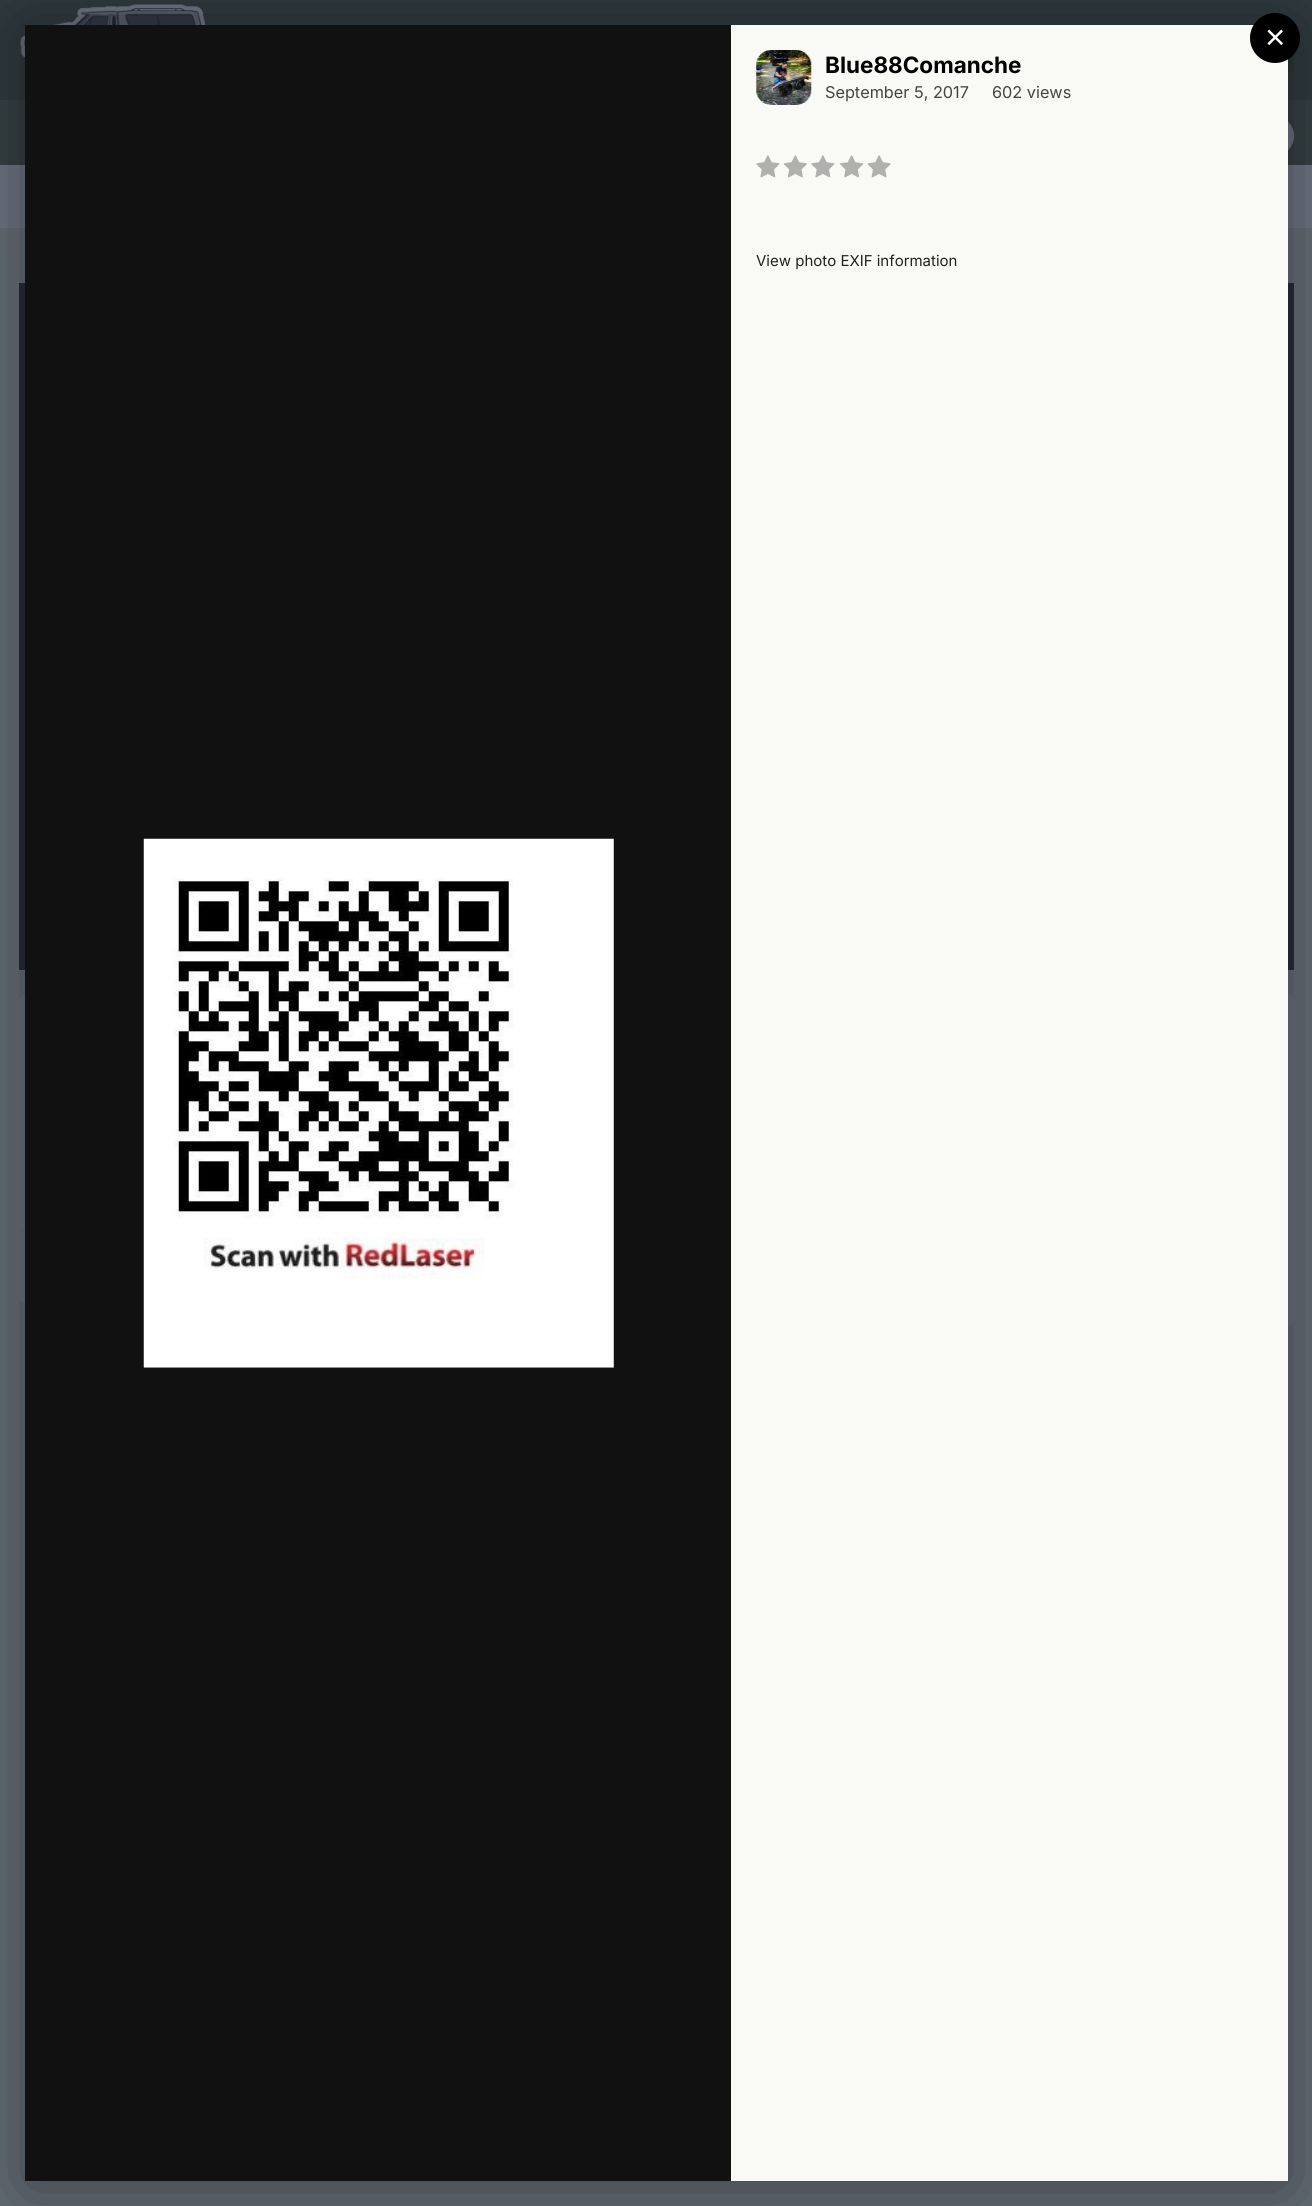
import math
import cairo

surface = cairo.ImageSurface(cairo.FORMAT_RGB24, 1312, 2206)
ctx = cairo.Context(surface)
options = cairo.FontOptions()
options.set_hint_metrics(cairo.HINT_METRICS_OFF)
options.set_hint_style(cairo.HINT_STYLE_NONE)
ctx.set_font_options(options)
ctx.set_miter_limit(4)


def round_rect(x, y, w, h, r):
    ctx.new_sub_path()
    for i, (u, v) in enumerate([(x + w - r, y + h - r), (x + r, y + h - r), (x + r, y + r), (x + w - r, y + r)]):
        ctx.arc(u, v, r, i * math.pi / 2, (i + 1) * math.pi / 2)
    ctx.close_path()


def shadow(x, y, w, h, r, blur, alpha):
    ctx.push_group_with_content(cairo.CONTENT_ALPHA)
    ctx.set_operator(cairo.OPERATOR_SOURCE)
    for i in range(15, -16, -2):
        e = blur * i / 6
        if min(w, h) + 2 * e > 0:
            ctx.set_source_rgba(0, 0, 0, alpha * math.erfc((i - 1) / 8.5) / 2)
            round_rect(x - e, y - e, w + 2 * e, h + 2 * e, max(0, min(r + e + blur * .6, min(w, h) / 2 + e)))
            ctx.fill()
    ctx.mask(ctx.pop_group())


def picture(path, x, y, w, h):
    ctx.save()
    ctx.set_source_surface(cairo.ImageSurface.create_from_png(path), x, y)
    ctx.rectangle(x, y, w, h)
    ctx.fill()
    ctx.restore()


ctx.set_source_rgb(0.388, 0.424, 0.455)
ctx.paint()
ctx.set_source_rgb(0.184, 0.224, 0.243)
ctx.rectangle(0, 0, 1312, 100)
ctx.fill()
picture("img1.png", 20, 4, 186, 54)
ctx.set_source_rgb(0.173, 0.216, 0.208)
round_rect(1180, 29, 114, 44, 5)
ctx.fill()
ctx.set_source_rgb(0.208, 0.247, 0.259)
ctx.rectangle(0, 100, 1312, 65)
ctx.fill()
ctx.set_source_rgb(0.424, 0.451, 0.498)
round_rect(856, 116, 438, 40, 20)
ctx.fill()
ctx.rectangle(0, 165, 1312, 63)
ctx.fill()
ctx.set_source_rgb(0.145, 0.173, 0.22)
ctx.rectangle(19, 283, 1275, 687)
ctx.fill()
ctx.set_source_rgb(0.416, 0.447, 0.486)
round_rect(19, 995, 910, 308, 5)
ctx.fill()
ctx.set_source_rgb(0.392, 0.42, 0.463)
ctx.rectangle(19, 1230, 6, 1)
ctx.fill()
ctx.set_source_rgb(0.416, 0.447, 0.486)
round_rect(959, 995, 335, 330, 5)
ctx.fill()
ctx.set_source_rgb(0, 0, 0)
shadow(25, 31, 1263, 2157, 0, 34.5, 0.4)
ctx.set_source_rgb(0.976, 0.98, 0.961)
ctx.rectangle(731, 25, 557, 2156)
ctx.fill()
ctx.set_source_rgb(0, 0, 0)
ctx.arc(1275, 38, 25, 0, 2 * math.pi)
ctx.fill()
ctx.select_font_face("Liberation Sans")
ctx.set_font_size(35)
ctx.set_source_rgb(1, 1, 1)
ctx.move_to(1265, 49)
ctx.show_text("×")
ctx.set_source_rgb(0.067, 0.067, 0.067)
ctx.rectangle(25, 25, 706, 2156)
ctx.fill()
picture("img2.png", 756, 50, 56, 55)
ctx.select_font_face("Inter", cairo.FONT_SLANT_NORMAL, cairo.FONT_WEIGHT_BOLD)
ctx.set_font_size(22.5)
ctx.set_source_rgb(0, 0, 0)
ctx.move_to(825, 73)
ctx.show_text("Blue88Comanche")
ctx.select_font_face("Inter")
ctx.set_font_size(16.25)
ctx.set_source_rgb(0.267, 0.267, 0.267)
ctx.move_to(825, 98)
ctx.show_text("September 5, 2017")
ctx.move_to(992, 98)
ctx.show_text("602 views")
picture("img3.png", 756, 155, 24, 23)
picture("img4.png", 783, 155, 24, 23)
picture("img3.png", 811, 155, 24, 23)
picture("img5.png", 840, 155, 24, 23)
picture("img6.png", 867, 155, 24, 23)
ctx.set_font_size(15)
ctx.set_source_rgb(0.125, 0.129, 0.129)
ctx.move_to(756, 266)
ctx.show_text("View photo EXIF information")
ctx.set_source_rgb(0.133, 0.133, 0.133)
ctx.rectangle(144, 839, 470, 529)
ctx.fill()
picture("img7.png", 143, 838, 471, 530)
surface.write_to_png("page.png")
